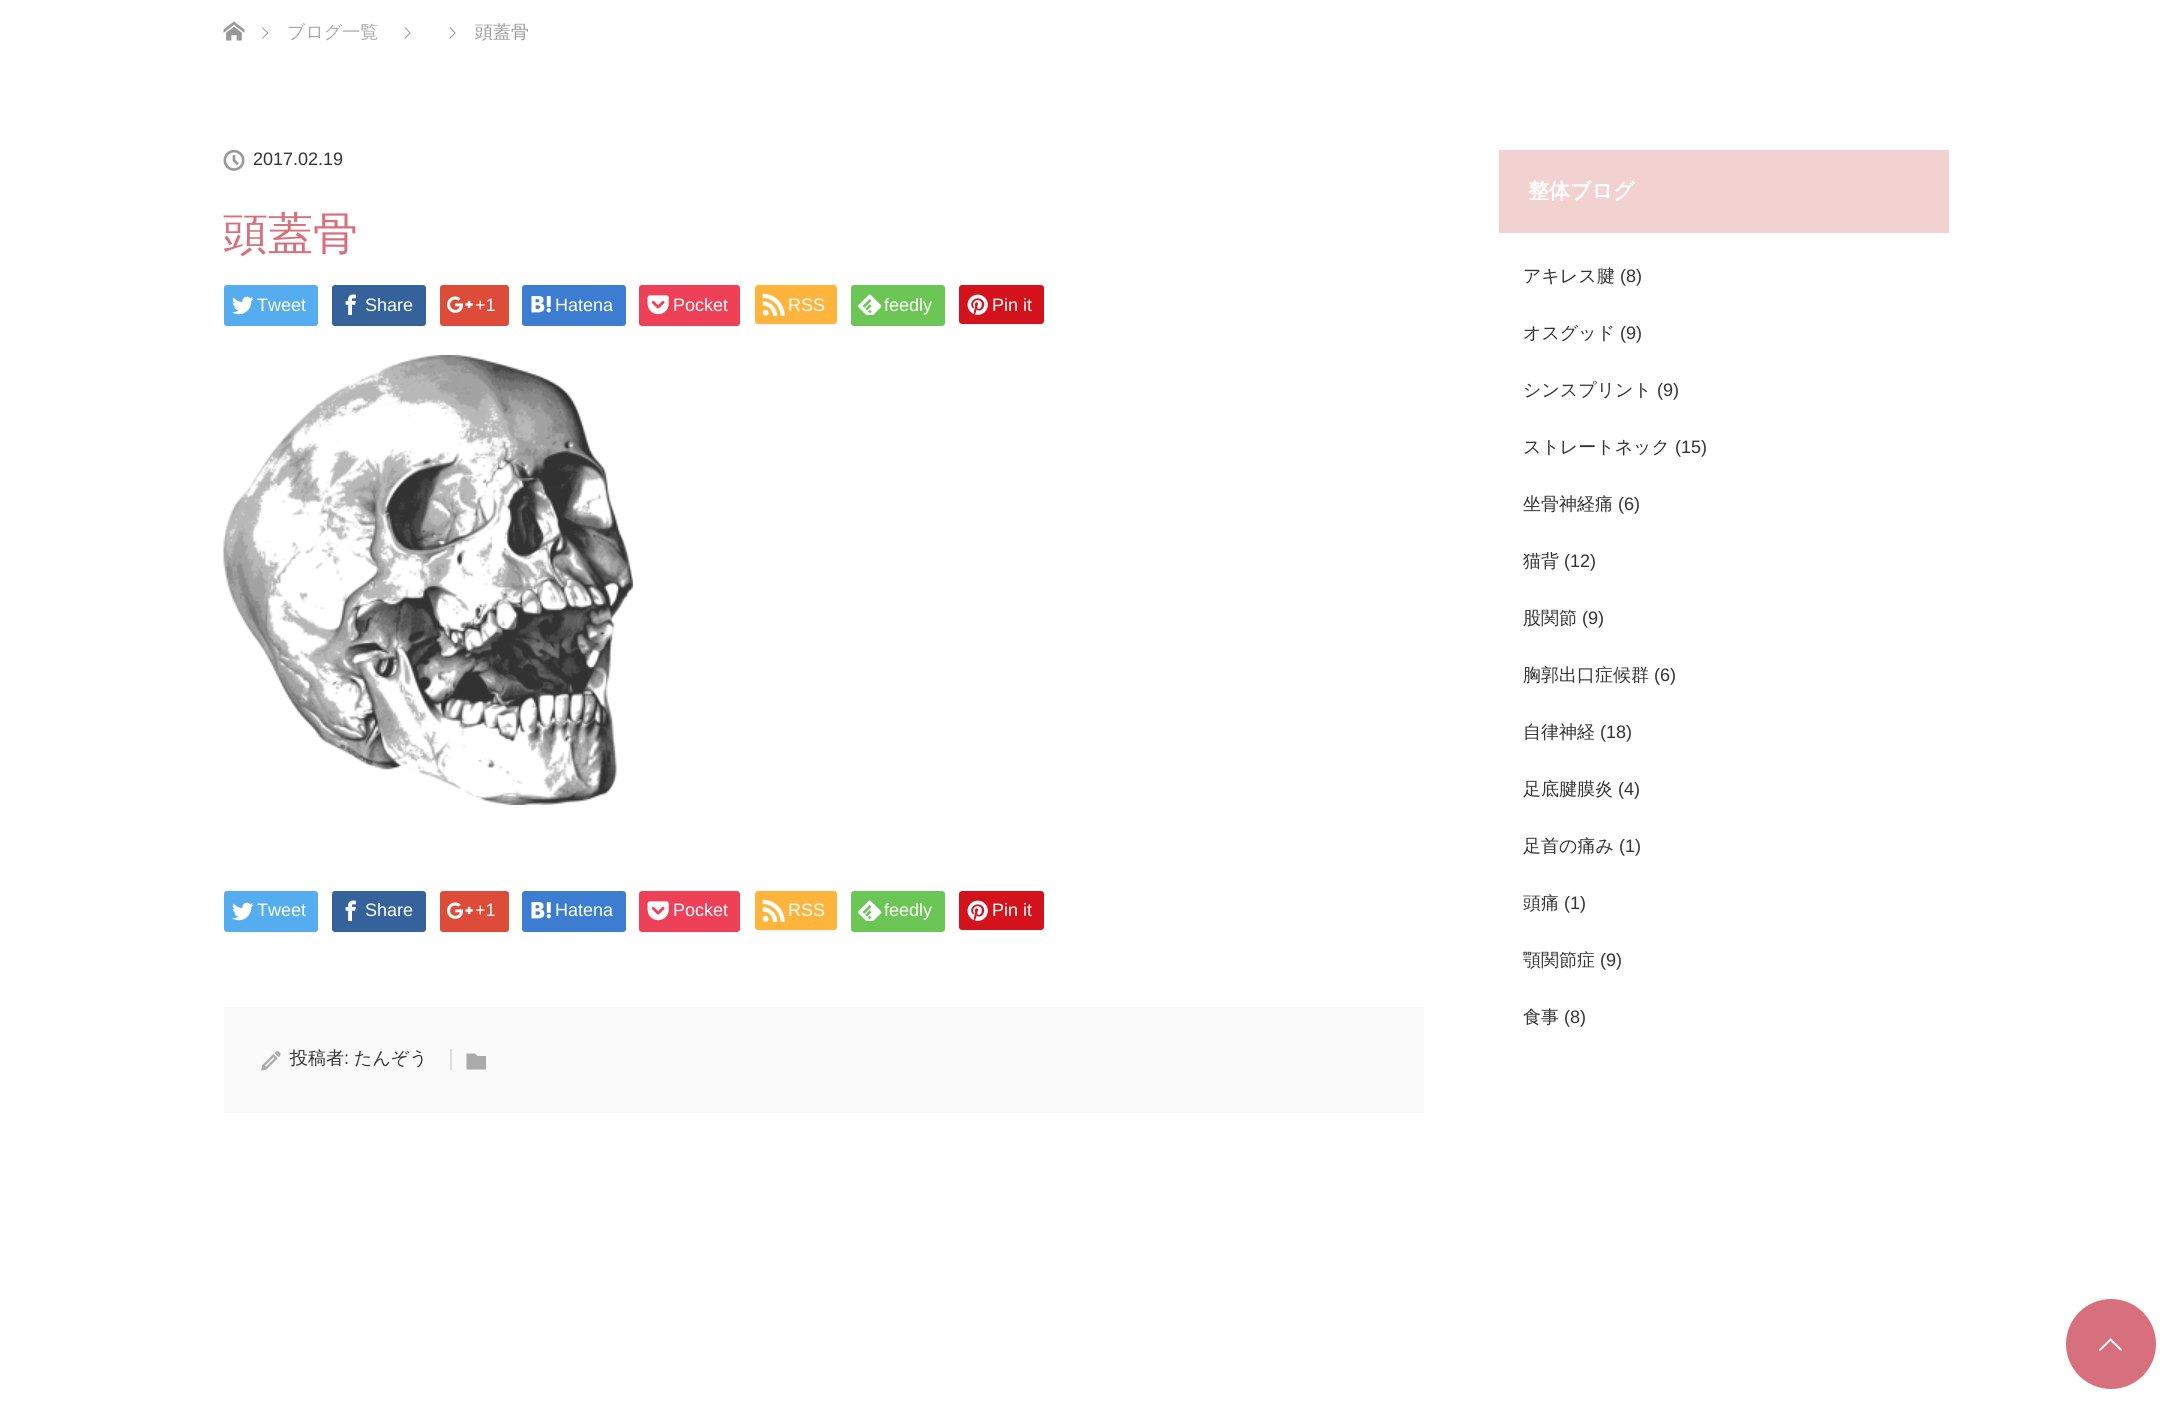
import math
import cairo

surface = cairo.ImageSurface(cairo.FORMAT_RGB24, 2170, 1403)
ctx = cairo.Context(surface)
options = cairo.FontOptions()
options.set_hint_metrics(cairo.HINT_METRICS_OFF)
options.set_hint_style(cairo.HINT_STYLE_NONE)
ctx.set_font_options(options)
ctx.set_miter_limit(4)


def round_rect(x, y, w, h, r):
    ctx.new_sub_path()
    for i, (u, v) in enumerate([(x + w - r, y + h - r), (x + r, y + h - r), (x + r, y + r), (x + w - r, y + r)]):
        ctx.arc(u, v, r, i * math.pi / 2, (i + 1) * math.pi / 2)
    ctx.close_path()


def picture(path, x, y, w, h):
    ctx.save()
    ctx.set_source_surface(cairo.ImageSurface.create_from_png(path), x, y)
    ctx.rectangle(x, y, w, h)
    ctx.fill()
    ctx.restore()


ctx.set_source_rgb(1, 1, 1)
ctx.paint()
picture("img1.png", 223, 21, 22, 20)
picture("img2.png", 262, 27, 7, 12)
ctx.select_font_face("WenQuanYi Zen Hei Medium")
ctx.set_font_size(18)
ctx.set_source_rgb(0.667, 0.667, 0.667)
ctx.move_to(287, 38)
ctx.show_text("ブログ一覧")
picture("img3.png", 404, 27, 7, 12)
picture("img3.png", 449, 27, 7, 12)
ctx.set_source_rgb(0.6, 0.6, 0.6)
ctx.move_to(475, 38)
ctx.show_text("頭蓋骨")
picture("img4.png", 223, 149, 22, 22)
ctx.select_font_face("Liberation Sans")
ctx.set_source_rgb(0.2, 0.2, 0.2)
ctx.move_to(253, 165)
ctx.show_text("2017.02.19")
ctx.select_font_face("WenQuanYi Zen Hei Medium")
ctx.set_font_size(45)
ctx.set_source_rgb(0.847, 0.435, 0.486)
ctx.move_to(223, 249)
ctx.show_text("頭蓋骨")
ctx.set_source_rgb(0.969, 0.969, 0.969)
ctx.new_path()
ctx.move_to(224, 324)
ctx.curve_to(224, 326, 225, 327, 227, 327)
ctx.line_to(315, 327)
ctx.curve_to(317, 327, 318, 326, 318, 324)
ctx.line_to(318, 322)
ctx.line_to(317, 324)
ctx.line_to(316, 325)
ctx.line_to(226, 325)
ctx.close_path()
ctx.fill()
ctx.set_source_rgb(0.333, 0.675, 0.933)
round_rect(224, 285, 94, 41, 3)
ctx.fill()
picture("img5.png", 232, 296, 22, 19)
ctx.select_font_face("Liberation Sans")
ctx.set_font_size(18)
ctx.set_source_rgb(1, 1, 1)
ctx.move_to(257, 311)
ctx.show_text("Tweet")
ctx.set_source_rgb(0.969, 0.969, 0.969)
ctx.new_path()
ctx.move_to(332, 324)
ctx.curve_to(332, 326, 333, 327, 335, 327)
ctx.line_to(423, 327)
ctx.curve_to(425, 327, 426, 326, 426, 324)
ctx.line_to(426, 322)
ctx.line_to(425, 324)
ctx.line_to(424, 325)
ctx.line_to(334, 325)
ctx.close_path()
ctx.fill()
ctx.set_source_rgb(0.208, 0.384, 0.604)
round_rect(332, 285, 94, 41, 3)
ctx.fill()
picture("img6.png", 345, 294, 11, 21)
ctx.set_source_rgb(1, 1, 1)
ctx.move_to(365, 311)
ctx.show_text("Share")
ctx.set_source_rgb(0.969, 0.969, 0.969)
ctx.new_path()
ctx.move_to(440, 324)
ctx.curve_to(440, 326, 441, 327, 443, 327)
ctx.line_to(506, 327)
ctx.curve_to(508, 327, 509, 326, 509, 324)
ctx.line_to(509, 290)
ctx.line_to(508, 288)
ctx.line_to(508, 322)
ctx.curve_to(508, 324, 507, 326, 506, 326)
ctx.line_to(442, 326)
ctx.curve_to(441, 326, 441, 325, 440, 324)
ctx.close_path()
ctx.fill()
ctx.set_source_rgb(0.867, 0.294, 0.224)
round_rect(440, 285, 69, 41, 3)
ctx.fill()
picture("img7.png", 447, 296, 26, 17)
ctx.set_source_rgb(1, 1, 1)
ctx.move_to(475, 311)
ctx.show_text("+1")
ctx.set_source_rgb(0.969, 0.969, 0.969)
ctx.new_path()
ctx.move_to(522, 322)
ctx.line_to(522, 324)
ctx.curve_to(522, 326, 523, 327, 525, 327)
ctx.line_to(623, 327)
ctx.curve_to(625, 327, 626, 326, 626, 324)
ctx.line_to(626, 290)
ctx.line_to(626, 288)
ctx.line_to(626, 322)
ctx.curve_to(626, 324, 624, 326, 622, 326)
ctx.line_to(525, 326)
ctx.curve_to(523, 326, 522, 324, 522, 322)
ctx.close_path()
ctx.fill()
ctx.set_source_rgb(0.235, 0.49, 0.82)
round_rect(522, 285, 104, 41, 3)
ctx.fill()
picture("img8.png", 531, 296, 20, 17)
ctx.set_source_rgb(1, 1, 1)
ctx.move_to(555, 311)
ctx.show_text("Hatena")
ctx.set_source_rgb(0.969, 0.969, 0.969)
ctx.new_path()
ctx.move_to(639, 322)
ctx.line_to(639, 324)
ctx.curve_to(639, 326, 640, 327, 642, 327)
ctx.line_to(737, 327)
ctx.curve_to(739, 327, 740, 326, 740, 324)
ctx.line_to(740, 290)
ctx.line_to(740, 288)
ctx.line_to(740, 322)
ctx.curve_to(740, 324, 738, 326, 736, 326)
ctx.line_to(642, 326)
ctx.curve_to(640, 326, 639, 324, 639, 322)
ctx.close_path()
ctx.fill()
ctx.set_source_rgb(0.933, 0.251, 0.337)
round_rect(639, 285, 101, 41, 3)
ctx.fill()
picture("img9.png", 647, 295, 22, 20)
ctx.set_source_rgb(1, 1, 1)
ctx.move_to(673, 311)
ctx.show_text("Pocket")
ctx.set_source_rgb(0.969, 0.969, 0.969)
ctx.new_path()
ctx.move_to(755, 323)
ctx.line_to(756, 325)
ctx.line_to(757, 326)
ctx.line_to(834, 326)
ctx.curve_to(837, 326, 837, 323, 837, 321)
ctx.line_to(836, 323)
ctx.line_to(835, 324)
ctx.line_to(770, 324)
ctx.curve_to(770, 324, 757, 326, 755, 323)
ctx.close_path()
ctx.fill()
ctx.set_source_rgb(1, 0.71, 0.235)
round_rect(755, 285, 82, 39, 3)
ctx.fill()
picture("img10.png", 762, 293, 23, 23)
ctx.set_source_rgb(1, 1, 1)
ctx.move_to(788, 311)
ctx.show_text("RSS")
ctx.set_source_rgb(0.969, 0.969, 0.969)
ctx.new_path()
ctx.move_to(851, 324)
ctx.curve_to(851, 326, 852, 327, 854, 327)
ctx.line_to(942, 327)
ctx.curve_to(944, 327, 945, 326, 945, 324)
ctx.line_to(945, 322)
ctx.line_to(944, 324)
ctx.line_to(943, 325)
ctx.line_to(853, 325)
ctx.close_path()
ctx.fill()
ctx.set_source_rgb(0.424, 0.776, 0.333)
round_rect(851, 285, 94, 41, 3)
ctx.fill()
picture("img11.png", 858, 294, 24, 21)
ctx.set_source_rgb(1, 1, 1)
ctx.move_to(884, 311)
ctx.show_text("feedly")
ctx.set_source_rgb(0.969, 0.969, 0.969)
ctx.new_path()
ctx.move_to(959, 323)
ctx.curve_to(959, 325, 960, 326, 962, 326)
ctx.line_to(1041, 326)
ctx.curve_to(1043, 326, 1044, 325, 1044, 323)
ctx.line_to(1044, 321)
ctx.curve_to(1044, 323, 1043, 324, 1041, 324)
ctx.line_to(962, 324)
ctx.curve_to(960, 324, 960, 323, 959, 323)
ctx.close_path()
ctx.fill()
ctx.set_source_rgb(0.831, 0.071, 0.11)
round_rect(959, 285, 85, 39, 3)
ctx.fill()
picture("img12.png", 967, 294, 21, 21)
ctx.set_source_rgb(1, 1, 1)
ctx.move_to(992, 311)
ctx.show_text("Pin it")
picture("img13.png", 223, 355, 410, 450)
ctx.set_source_rgb(0.969, 0.969, 0.969)
ctx.new_path()
ctx.move_to(224, 930)
ctx.curve_to(224, 932, 225, 933, 227, 933)
ctx.line_to(315, 933)
ctx.curve_to(317, 933, 318, 932, 318, 930)
ctx.line_to(318, 928)
ctx.line_to(317, 930)
ctx.line_to(316, 931)
ctx.line_to(226, 931)
ctx.close_path()
ctx.fill()
ctx.set_source_rgb(0.333, 0.675, 0.933)
round_rect(224, 891, 94, 41, 3)
ctx.fill()
picture("img5.png", 232, 902, 22, 19)
ctx.set_source_rgb(1, 1, 1)
ctx.move_to(257, 916)
ctx.show_text("Tweet")
ctx.set_source_rgb(0.969, 0.969, 0.969)
ctx.new_path()
ctx.move_to(332, 930)
ctx.curve_to(332, 932, 333, 933, 335, 933)
ctx.line_to(423, 933)
ctx.curve_to(425, 933, 426, 932, 426, 930)
ctx.line_to(426, 928)
ctx.line_to(425, 930)
ctx.line_to(424, 931)
ctx.line_to(334, 931)
ctx.close_path()
ctx.fill()
ctx.set_source_rgb(0.208, 0.384, 0.604)
round_rect(332, 891, 94, 41, 3)
ctx.fill()
picture("img6.png", 345, 900, 11, 21)
ctx.set_source_rgb(1, 1, 1)
ctx.move_to(365, 916)
ctx.show_text("Share")
ctx.set_source_rgb(0.969, 0.969, 0.969)
ctx.new_path()
ctx.move_to(440, 930)
ctx.curve_to(440, 932, 441, 933, 443, 933)
ctx.line_to(506, 933)
ctx.curve_to(508, 933, 509, 932, 509, 930)
ctx.line_to(509, 896)
ctx.line_to(508, 894)
ctx.line_to(508, 928)
ctx.curve_to(508, 930, 507, 932, 506, 932)
ctx.line_to(442, 932)
ctx.curve_to(441, 932, 441, 931, 440, 930)
ctx.close_path()
ctx.fill()
ctx.set_source_rgb(0.867, 0.294, 0.224)
round_rect(440, 891, 69, 41, 3)
ctx.fill()
picture("img7.png", 447, 902, 26, 17)
ctx.set_source_rgb(1, 1, 1)
ctx.move_to(475, 916)
ctx.show_text("+1")
ctx.set_source_rgb(0.969, 0.969, 0.969)
ctx.new_path()
ctx.move_to(522, 928)
ctx.line_to(522, 930)
ctx.curve_to(522, 932, 523, 933, 525, 933)
ctx.line_to(623, 933)
ctx.curve_to(625, 933, 626, 932, 626, 930)
ctx.line_to(626, 896)
ctx.line_to(626, 894)
ctx.line_to(626, 928)
ctx.curve_to(626, 930, 624, 932, 622, 932)
ctx.line_to(525, 932)
ctx.curve_to(523, 932, 522, 930, 522, 928)
ctx.close_path()
ctx.fill()
ctx.set_source_rgb(0.235, 0.49, 0.82)
round_rect(522, 891, 104, 41, 3)
ctx.fill()
picture("img8.png", 531, 902, 20, 17)
ctx.set_source_rgb(1, 1, 1)
ctx.move_to(555, 916)
ctx.show_text("Hatena")
ctx.set_source_rgb(0.969, 0.969, 0.969)
ctx.new_path()
ctx.move_to(639, 928)
ctx.line_to(639, 930)
ctx.curve_to(639, 932, 640, 933, 642, 933)
ctx.line_to(737, 933)
ctx.curve_to(739, 933, 740, 932, 740, 930)
ctx.line_to(740, 896)
ctx.line_to(740, 894)
ctx.line_to(740, 928)
ctx.curve_to(740, 930, 738, 932, 736, 932)
ctx.line_to(642, 932)
ctx.curve_to(640, 932, 639, 930, 639, 928)
ctx.close_path()
ctx.fill()
ctx.set_source_rgb(0.933, 0.251, 0.337)
round_rect(639, 891, 101, 41, 3)
ctx.fill()
picture("img9.png", 647, 901, 22, 20)
ctx.set_source_rgb(1, 1, 1)
ctx.move_to(673, 916)
ctx.show_text("Pocket")
ctx.set_source_rgb(0.969, 0.969, 0.969)
ctx.new_path()
ctx.move_to(755, 929)
ctx.line_to(756, 931)
ctx.line_to(757, 932)
ctx.line_to(834, 932)
ctx.curve_to(837, 932, 837, 929, 837, 927)
ctx.line_to(836, 929)
ctx.line_to(835, 930)
ctx.line_to(770, 930)
ctx.curve_to(770, 930, 757, 932, 755, 929)
ctx.close_path()
ctx.fill()
ctx.set_source_rgb(1, 0.71, 0.235)
round_rect(755, 891, 82, 39, 3)
ctx.fill()
picture("img10.png", 762, 899, 23, 23)
ctx.set_source_rgb(1, 1, 1)
ctx.move_to(788, 916)
ctx.show_text("RSS")
ctx.set_source_rgb(0.969, 0.969, 0.969)
ctx.new_path()
ctx.move_to(851, 930)
ctx.curve_to(851, 932, 852, 933, 854, 933)
ctx.line_to(942, 933)
ctx.curve_to(944, 933, 945, 932, 945, 930)
ctx.line_to(945, 928)
ctx.line_to(944, 930)
ctx.line_to(943, 931)
ctx.line_to(853, 931)
ctx.close_path()
ctx.fill()
ctx.set_source_rgb(0.424, 0.776, 0.333)
round_rect(851, 891, 94, 41, 3)
ctx.fill()
picture("img11.png", 858, 900, 24, 21)
ctx.set_source_rgb(1, 1, 1)
ctx.move_to(884, 916)
ctx.show_text("feedly")
ctx.set_source_rgb(0.969, 0.969, 0.969)
ctx.new_path()
ctx.move_to(959, 929)
ctx.curve_to(959, 931, 960, 932, 962, 932)
ctx.line_to(1041, 932)
ctx.curve_to(1043, 932, 1044, 931, 1044, 929)
ctx.line_to(1044, 927)
ctx.curve_to(1044, 929, 1043, 930, 1041, 930)
ctx.line_to(962, 930)
ctx.curve_to(960, 930, 960, 929, 959, 929)
ctx.close_path()
ctx.fill()
ctx.set_source_rgb(0.831, 0.071, 0.11)
round_rect(959, 891, 85, 39, 3)
ctx.fill()
picture("img12.png", 967, 900, 21, 21)
ctx.set_source_rgb(1, 1, 1)
ctx.move_to(992, 916)
ctx.show_text("Pin it")
ctx.set_source_rgb(0.98, 0.98, 0.98)
ctx.rectangle(224, 1007, 1200, 106)
ctx.fill()
ctx.set_source_rgb(0.867, 0.867, 0.867)
ctx.rectangle(450, 1049, 2, 21)
ctx.fill()
picture("img14.png", 261, 1051, 20, 20)
ctx.select_font_face("WenQuanYi Zen Hei Medium")
ctx.set_source_rgb(0.2, 0.2, 0.2)
ctx.move_to(290, 1064)
ctx.show_text("投稿者")
ctx.select_font_face("Liberation Sans")
ctx.move_to(344, 1064)
ctx.show_text(":")
ctx.select_font_face("WenQuanYi Zen Hei Medium")
ctx.move_to(354, 1064)
ctx.show_text("たんぞう")
ctx.set_source_rgb(0.667, 0.667, 0.667)
ctx.new_path()
ctx.move_to(475, 1053.5)
ctx.line_to(477.5, 1056)
ctx.line_to(486, 1056)
ctx.line_to(486, 1069.5)
ctx.line_to(466.5, 1069.5)
ctx.line_to(466.5, 1053.5)
ctx.close_path()
ctx.fill()
ctx.set_source_rgb(0.949, 0.824, 0.816)
ctx.rectangle(1499, 150, 450, 83)
ctx.fill()
ctx.select_font_face("WenQuanYi Zen Hei", cairo.FONT_SLANT_NORMAL, cairo.FONT_WEIGHT_BOLD)
ctx.set_font_size(21)
ctx.set_source_rgb(1, 1, 1)
ctx.move_to(1528, 198)
ctx.show_text("整体ブログ")
ctx.select_font_face("WenQuanYi Zen Hei Medium")
ctx.set_font_size(18)
ctx.set_source_rgb(0.2, 0.2, 0.2)
ctx.move_to(1523, 282)
ctx.show_text("アキレス腱")
ctx.select_font_face("Liberation Sans")
ctx.move_to(1620, 282)
ctx.show_text("(8)")
ctx.select_font_face("WenQuanYi Zen Hei Medium")
ctx.move_to(1523, 339)
ctx.show_text("オスグッド")
ctx.select_font_face("Liberation Sans")
ctx.move_to(1620, 339)
ctx.show_text("(9)")
ctx.select_font_face("WenQuanYi Zen Hei Medium")
ctx.move_to(1523, 396)
ctx.show_text("シンスプリント")
ctx.select_font_face("Liberation Sans")
ctx.move_to(1657, 396)
ctx.show_text("(9)")
ctx.select_font_face("WenQuanYi Zen Hei Medium")
ctx.move_to(1523, 453)
ctx.show_text("ストレートネック")
ctx.select_font_face("Liberation Sans")
ctx.move_to(1675, 453)
ctx.show_text("(15)")
ctx.select_font_face("WenQuanYi Zen Hei Medium")
ctx.move_to(1523, 510)
ctx.show_text("坐骨神経痛")
ctx.select_font_face("Liberation Sans")
ctx.move_to(1618, 510)
ctx.show_text("(6)")
ctx.select_font_face("WenQuanYi Zen Hei Medium")
ctx.move_to(1523, 567)
ctx.show_text("猫背")
ctx.select_font_face("Liberation Sans")
ctx.move_to(1564, 567)
ctx.show_text("(12)")
ctx.select_font_face("WenQuanYi Zen Hei Medium")
ctx.move_to(1523, 624)
ctx.show_text("股関節")
ctx.select_font_face("Liberation Sans")
ctx.move_to(1582, 624)
ctx.show_text("(9)")
ctx.select_font_face("WenQuanYi Zen Hei Medium")
ctx.move_to(1523, 681)
ctx.show_text("胸郭出口症候群")
ctx.select_font_face("Liberation Sans")
ctx.move_to(1654, 681)
ctx.show_text("(6)")
ctx.select_font_face("WenQuanYi Zen Hei Medium")
ctx.move_to(1523, 738)
ctx.show_text("自律神経")
ctx.select_font_face("Liberation Sans")
ctx.move_to(1600, 738)
ctx.show_text("(18)")
ctx.select_font_face("WenQuanYi Zen Hei Medium")
ctx.move_to(1523, 795)
ctx.show_text("足底腱膜炎")
ctx.select_font_face("Liberation Sans")
ctx.move_to(1618, 795)
ctx.show_text("(4)")
ctx.select_font_face("WenQuanYi Zen Hei Medium")
ctx.move_to(1523, 852)
ctx.show_text("足首の痛み")
ctx.select_font_face("Liberation Sans")
ctx.move_to(1619, 852)
ctx.show_text("(1)")
ctx.select_font_face("WenQuanYi Zen Hei Medium")
ctx.move_to(1523, 909)
ctx.show_text("頭痛")
ctx.select_font_face("Liberation Sans")
ctx.move_to(1564, 909)
ctx.show_text("(1)")
ctx.select_font_face("WenQuanYi Zen Hei Medium")
ctx.move_to(1523, 966)
ctx.show_text("顎関節症")
ctx.select_font_face("Liberation Sans")
ctx.move_to(1600, 966)
ctx.show_text("(9)")
ctx.select_font_face("WenQuanYi Zen Hei Medium")
ctx.move_to(1523, 1023)
ctx.show_text("食事")
ctx.select_font_face("Liberation Sans")
ctx.move_to(1564, 1023)
ctx.show_text("(8)")
ctx.set_source_rgb(0.847, 0.435, 0.486)
ctx.new_path()
ctx.arc(2111, 1344, 45, 0, 2 * math.pi)
ctx.fill()
picture("img15.png", 2099, 1338, 23, 13)
surface.write_to_png("page.png")
